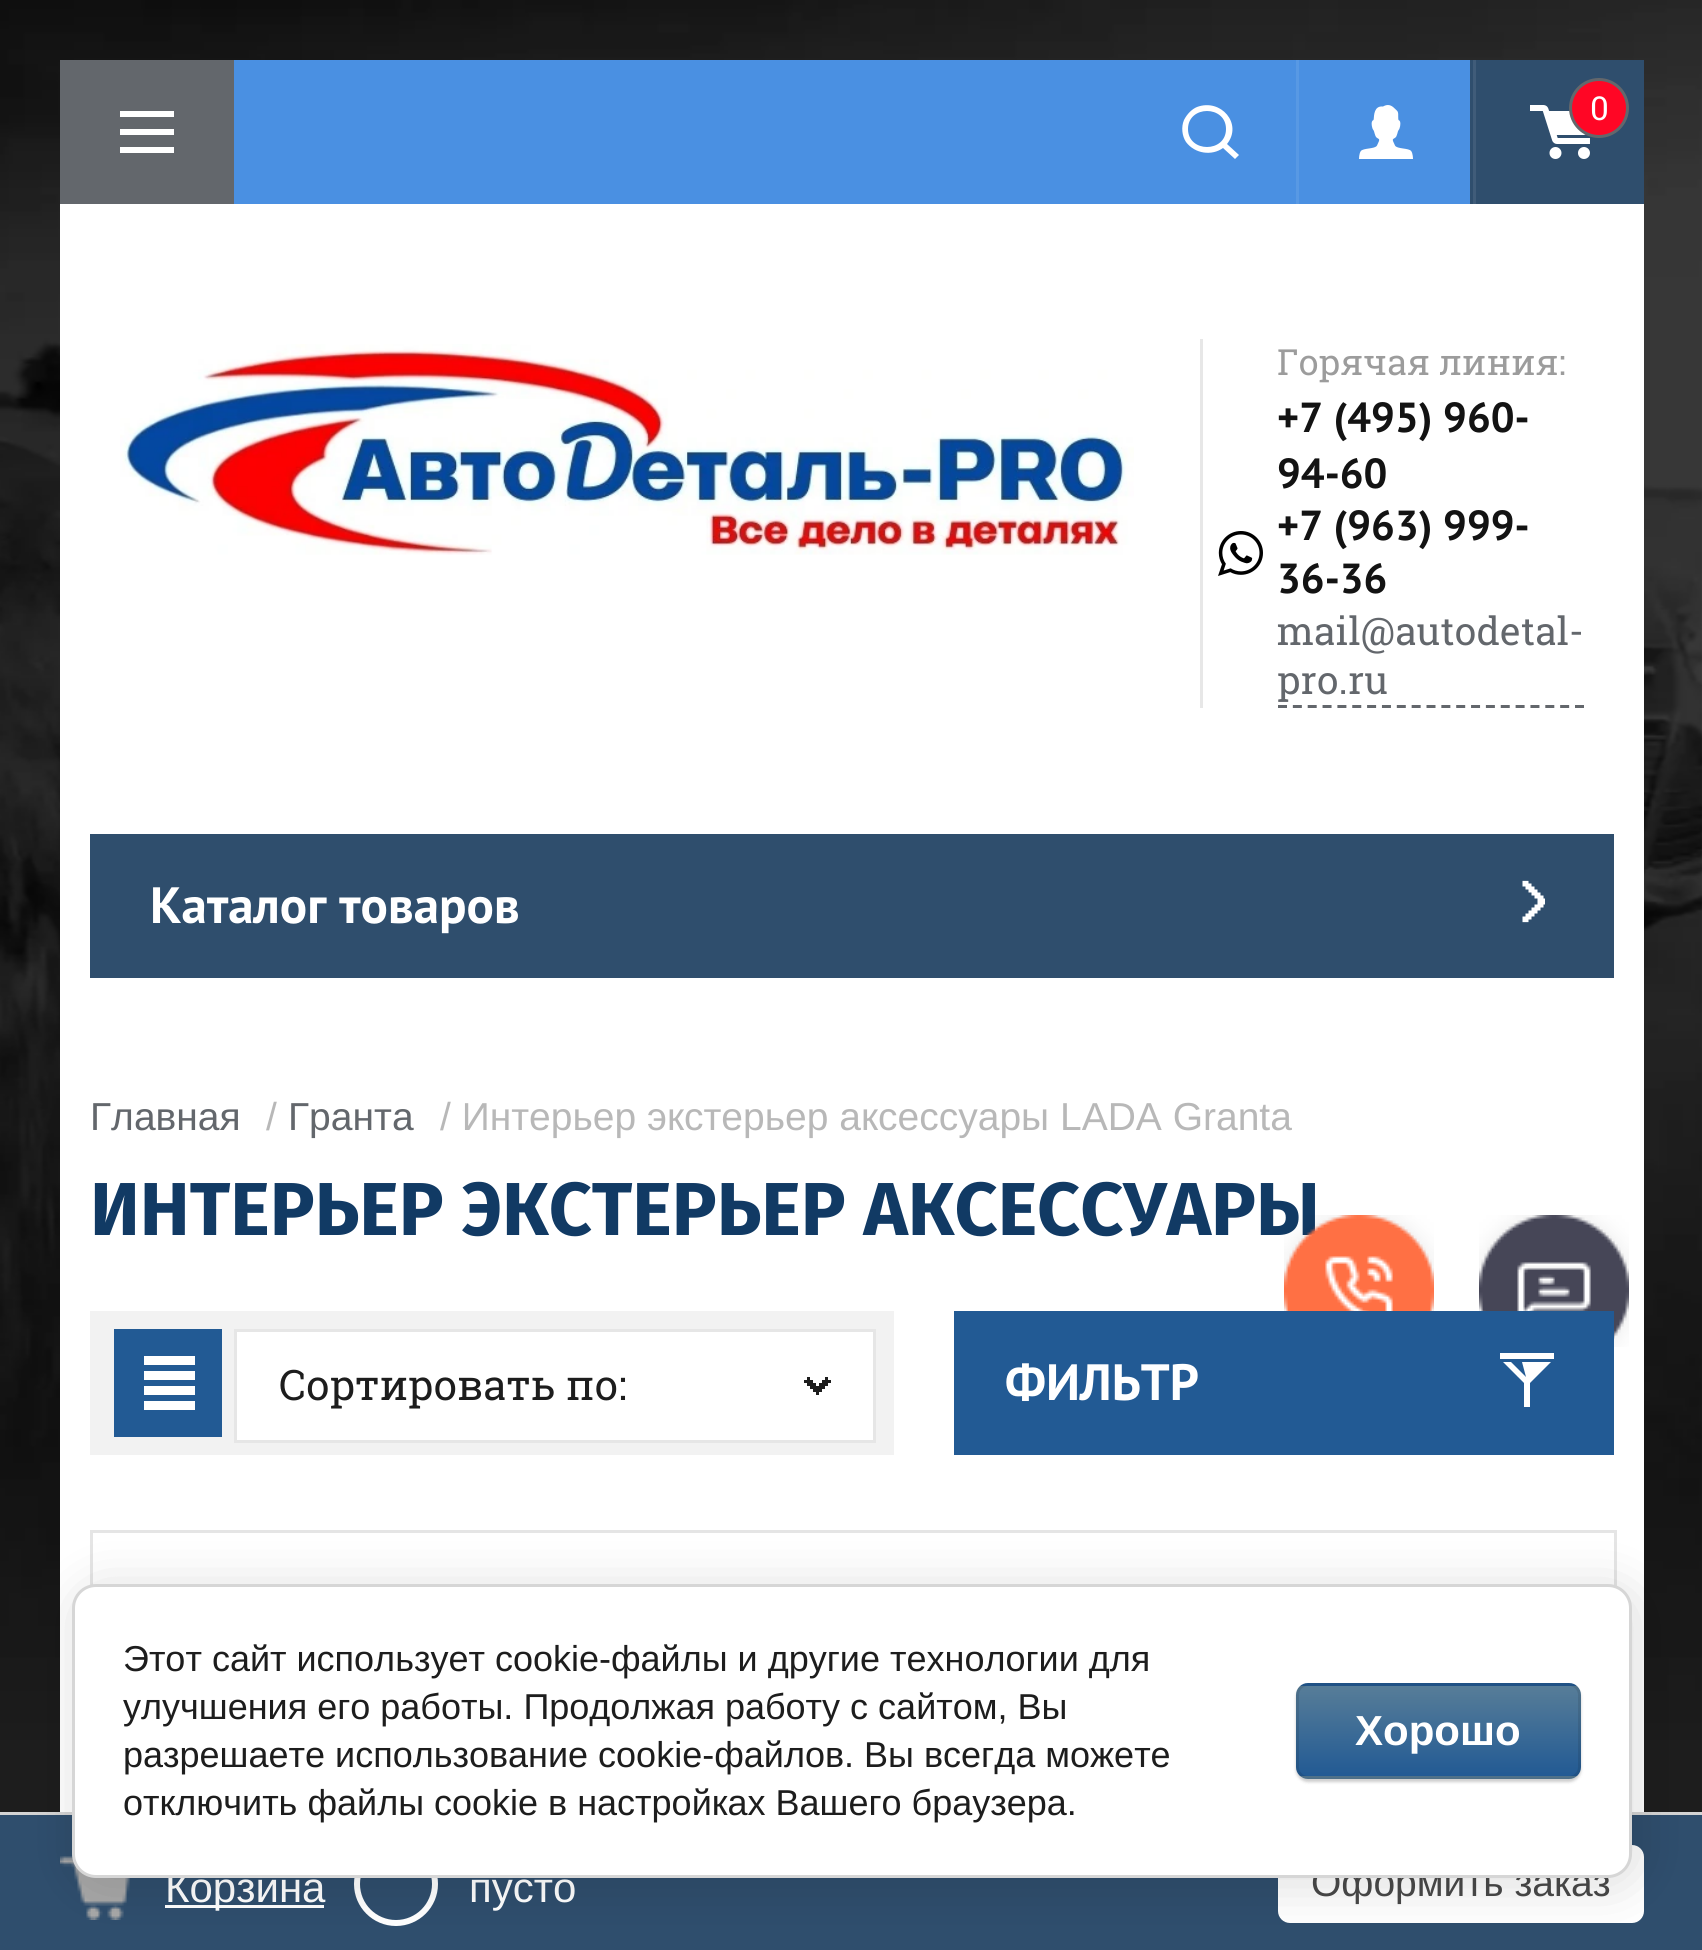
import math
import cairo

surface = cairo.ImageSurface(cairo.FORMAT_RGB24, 1702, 1950)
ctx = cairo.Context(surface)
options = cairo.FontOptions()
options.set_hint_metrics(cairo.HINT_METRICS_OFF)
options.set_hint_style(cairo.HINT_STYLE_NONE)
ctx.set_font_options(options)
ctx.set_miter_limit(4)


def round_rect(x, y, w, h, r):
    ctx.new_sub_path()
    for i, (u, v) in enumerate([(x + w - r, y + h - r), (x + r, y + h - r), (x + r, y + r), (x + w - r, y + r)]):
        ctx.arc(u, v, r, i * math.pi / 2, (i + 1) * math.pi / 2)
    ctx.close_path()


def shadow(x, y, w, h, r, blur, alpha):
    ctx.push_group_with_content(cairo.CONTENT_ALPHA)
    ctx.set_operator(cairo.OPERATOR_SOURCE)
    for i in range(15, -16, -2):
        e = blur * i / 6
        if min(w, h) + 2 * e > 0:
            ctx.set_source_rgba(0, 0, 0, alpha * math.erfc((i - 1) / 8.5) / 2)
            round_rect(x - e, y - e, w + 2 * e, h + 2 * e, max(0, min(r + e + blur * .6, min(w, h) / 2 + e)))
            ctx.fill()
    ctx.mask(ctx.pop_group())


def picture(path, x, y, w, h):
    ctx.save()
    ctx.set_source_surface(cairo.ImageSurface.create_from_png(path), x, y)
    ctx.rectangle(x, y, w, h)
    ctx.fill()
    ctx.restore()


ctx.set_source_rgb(1, 1, 1)
ctx.paint()
picture("img1.png", 0, 0, 1702, 1812)
ctx.set_source_rgb(1, 1, 1)
ctx.rectangle(60, 204, 1584, 1608)
ctx.fill()
ctx.set_source_rgb(0.29, 0.565, 0.886)
ctx.rectangle(234, 60, 1236, 144)
ctx.fill()
ctx.set_source_rgb(0.388, 0.404, 0.424)
ctx.rectangle(60, 60, 174, 144)
ctx.fill()
ctx.set_source_rgb(1, 1, 1)
ctx.new_path()
ctx.move_to(120, 153)
ctx.line_to(120, 147)
ctx.line_to(174, 147)
ctx.line_to(174, 153)
ctx.close_path()
ctx.move_to(120, 129)
ctx.line_to(174, 129)
ctx.line_to(174, 135)
ctx.line_to(120, 135)
ctx.close_path()
ctx.move_to(120, 111)
ctx.line_to(174, 111)
ctx.line_to(174, 117)
ctx.line_to(120, 117)
ctx.close_path()
ctx.fill()
ctx.new_path()
ctx.move_to(1239, 155)
ctx.line_to(1227, 144)
ctx.curve_to(1243, 124, 1221, 98, 1197, 107)
ctx.curve_to(1192, 109, 1187, 114, 1184, 120)
ctx.curve_to(1181, 127, 1182, 136, 1186, 142)
ctx.curve_to(1195, 154, 1212, 156, 1223, 148)
ctx.line_to(1235, 159)
ctx.close_path()
ctx.move_to(1188, 129)
ctx.curve_to(1188, 105, 1226, 105, 1226, 129)
ctx.curve_to(1226, 153, 1188, 153, 1188, 129)
ctx.close_path()
ctx.fill()
picture("img2.png", 1359, 105, 54, 54)
ctx.set_source_rgb(0.184, 0.306, 0.427)
ctx.rectangle(1470, 60, 174, 144)
ctx.fill()
ctx.set_source_rgb(0.251, 0.361, 0.475)
ctx.rectangle(1473, 60, 3, 144)
ctx.fill()
ctx.set_source_rgb(0.345, 0.6, 0.894)
ctx.rectangle(1296, 60, 3, 144)
ctx.fill()
picture("img3.png", 1530, 105, 60, 54)
ctx.set_source_rgb(1, 0.027, 0.145)
ctx.arc(1599, 108, 28.5, 0, 2 * math.pi)
ctx.fill_preserve()
ctx.set_source_rgb(0.388, 0.404, 0.424)
ctx.set_line_width(3)
ctx.stroke()
ctx.select_font_face("Roboto Slab")
ctx.set_font_size(33)
ctx.set_source_rgb(1, 1, 1)
ctx.move_to(1590, 120)
ctx.show_text("0")
picture("img4.png", 120, 344, 1014, 211)
ctx.set_source_rgb(0.906, 0.906, 0.906)
ctx.rectangle(1200, 339, 3, 369)
ctx.fill()
ctx.set_font_size(36)
ctx.set_source_rgb(0.612, 0.612, 0.612)
ctx.move_to(1277, 375)
ctx.show_text("Горячая линия:")
ctx.select_font_face("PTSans", cairo.FONT_SLANT_NORMAL, cairo.FONT_WEIGHT_BOLD)
ctx.set_font_size(42)
ctx.set_source_rgb(0.078, 0.078, 0.078)
ctx.move_to(1277, 432)
ctx.show_text("+7 (495) 960-")
ctx.move_to(1277, 488)
ctx.show_text("94-60")
picture("img5.png", 1218, 531, 45, 45)
ctx.move_to(1277, 540)
ctx.show_text("+7 (963) 999-")
ctx.move_to(1277, 593)
ctx.show_text("36-36")
ctx.new_path()
ctx.move_to(1278, 706.5)
ctx.line_to(1584, 706.5)
ctx.set_source_rgb(0.388, 0.404, 0.424)
ctx.set_dash([9, 5.85])
ctx.stroke()
ctx.select_font_face("Roboto Slab")
ctx.set_font_size(39)
ctx.move_to(1277, 645)
ctx.show_text("mail@autodetal-")
ctx.move_to(1277, 694)
ctx.show_text("pro.ru")
ctx.set_source_rgb(0.184, 0.306, 0.427)
ctx.rectangle(90, 834, 1524, 144)
ctx.fill()
ctx.select_font_face("PTSans", cairo.FONT_SLANT_NORMAL, cairo.FONT_WEIGHT_BOLD)
ctx.set_font_size(51)
ctx.set_source_rgb(1, 1, 1)
ctx.move_to(150, 923)
ctx.show_text("Каталог товаров")
picture("img6.png", 1522, 880, 23, 43)
ctx.select_font_face("Liberation Sans")
ctx.set_font_size(39)
ctx.set_source_rgb(0.388, 0.404, 0.424)
ctx.move_to(90, 1130)
ctx.show_text("Главная")
ctx.set_source_rgb(0.722, 0.722, 0.722)
ctx.move_to(266, 1130)
ctx.show_text("/")
ctx.set_source_rgb(0.388, 0.404, 0.424)
ctx.move_to(288, 1130)
ctx.show_text("Гранта")
ctx.set_source_rgb(0.722, 0.722, 0.722)
ctx.move_to(440, 1130)
ctx.show_text("/ Интерьер экстерьер аксессуары LADA Granta")
ctx.select_font_face("Fira Sans", cairo.FONT_SLANT_NORMAL, cairo.FONT_WEIGHT_BOLD)
ctx.set_font_size(75)
ctx.set_source_rgb(0.067, 0.227, 0.392)
ctx.move_to(90, 1235)
ctx.show_text("ИНТЕРЬЕР ЭКСТЕРЬЕР АКСЕССУАРЫ")
ctx.set_source_rgb(0.949, 0.949, 0.949)
ctx.rectangle(90, 1311, 804, 144)
ctx.fill()
ctx.set_source_rgb(0.133, 0.353, 0.58)
ctx.rectangle(114, 1329, 108, 108)
ctx.fill()
ctx.save()
ctx.rectangle(144, 1356, 51, 54)
ctx.clip()
ctx.set_source_rgb(1, 1, 1)
ctx.new_path()
ctx.move_to(144, 1410)
ctx.line_to(144, 1401)
ctx.line_to(201, 1401)
ctx.line_to(201, 1410)
ctx.close_path()
ctx.move_to(144, 1386)
ctx.line_to(201, 1386)
ctx.line_to(201, 1395)
ctx.line_to(144, 1395)
ctx.close_path()
ctx.move_to(144, 1371)
ctx.line_to(201, 1371)
ctx.line_to(201, 1380)
ctx.line_to(144, 1380)
ctx.close_path()
ctx.move_to(144, 1356)
ctx.line_to(201, 1356)
ctx.line_to(201, 1365)
ctx.line_to(144, 1365)
ctx.close_path()
ctx.fill()
ctx.restore()
ctx.set_source_rgb(1, 1, 1)
ctx.rectangle(235.5, 1330.5, 639, 111)
ctx.fill_preserve()
ctx.set_source_rgb(0.902, 0.902, 0.902)
ctx.set_dash([])
ctx.stroke()
ctx.select_font_face("Roboto Slab")
ctx.set_font_size(42)
ctx.set_source_rgb(0.114, 0.114, 0.114)
ctx.move_to(279, 1400)
ctx.show_text("Сортировать по:")
picture("img7.png", 804, 1377, 27, 18)
picture("img10.png", 1479, 1215, 150, 132)
ctx.set_source_rgb(0.133, 0.353, 0.58)
ctx.rectangle(954, 1311, 660, 144)
ctx.fill()
ctx.select_font_face("PTSans", cairo.FONT_SLANT_NORMAL, cairo.FONT_WEIGHT_BOLD)
ctx.set_font_size(51)
ctx.set_source_rgb(1, 1, 1)
ctx.move_to(1005, 1400)
ctx.show_text("ФИЛЬТР")
ctx.new_path()
ctx.move_to(1521, 1359)
ctx.line_to(1500, 1359)
ctx.line_to(1500, 1353)
ctx.line_to(1554, 1353)
ctx.line_to(1554, 1359)
ctx.close_path()
ctx.move_to(1526, 1377)
ctx.line_to(1522, 1362)
ctx.line_to(1551, 1362)
ctx.line_to(1530, 1383)
ctx.line_to(1530, 1407)
ctx.line_to(1524, 1407)
ctx.line_to(1524, 1383)
ctx.line_to(1503, 1362)
ctx.line_to(1511, 1362)
ctx.close_path()
ctx.fill()
ctx.set_source_rgb(0.898, 0.898, 0.898)
ctx.rectangle(90, 1530, 1527, 3)
ctx.fill()
ctx.rectangle(1614, 1530, 3, 56)
ctx.fill()
ctx.rectangle(90, 1530, 3, 55)
ctx.fill()
ctx.set_source_rgb(0.184, 0.306, 0.427)
ctx.rectangle(0, 1815, 1702, 135)
ctx.fill()
ctx.set_source_rgb(0.831, 0.831, 0.831)
ctx.rectangle(0, 1812, 1702, 3)
ctx.fill()
picture("img8.png", 60, 1856, 70, 64)
ctx.set_source_rgb(1, 1, 1)
ctx.rectangle(165, 1905, 159, 3)
ctx.fill()
ctx.select_font_face("Liberation Sans")
ctx.set_font_size(42)
ctx.move_to(165, 1902)
ctx.show_text("Корзина")
ctx.new_path()
ctx.arc(396, 1884, 39, 0, 2 * math.pi)
ctx.set_line_width(6)
ctx.stroke()
ctx.move_to(469, 1902)
ctx.show_text("пусто")
round_rect(1278, 1845, 366, 78, 12)
ctx.fill()
ctx.set_font_size(39)
ctx.set_source_rgb(0.286, 0.286, 0.286)
ctx.move_to(1311, 1896)
ctx.show_text("Оформить заказ")
picture("img9.png", 1284, 1215, 150, 96)
ctx.set_source_rgb(0, 0, 0)
shadow(78, 1590, 1560, 294, 24, 27, 0.14)
ctx.set_source_rgb(1, 1, 1)
round_rect(73.5, 1585.5, 1557, 291, 22.5)
ctx.fill_preserve()
ctx.set_source_rgb(0.839, 0.839, 0.839)
ctx.set_line_width(3)
ctx.stroke()
ctx.set_font_size(36)
ctx.set_source_rgb(0.114, 0.114, 0.114)
ctx.move_to(123, 1671)
ctx.show_text("Этот сайт использует cookie-файлы и другие технологии для")
ctx.move_to(123, 1719)
ctx.show_text("улучшения его работы. Продолжая работу с сайтом, Вы")
ctx.move_to(123, 1767)
ctx.show_text("разрешаете использование cookie-файлов. Вы всегда можете")
ctx.move_to(123, 1815)
ctx.show_text("отключить файлы cookie в настройках Вашего браузера.")
ctx.set_source_rgb(0, 0, 0)
shadow(1296, 1686, 285, 96, 12, 1.5, 0.2)
ctx.save()
round_rect(1296, 1683, 285, 96, 12)
ctx.clip()
gradient = cairo.LinearGradient(1439, 1596, 1439, 1686)
gradient.add_color_stop_rgba(0, 0.341, 0.49, 0.596, 1)
gradient.add_color_stop_rgba(1, 0.133, 0.353, 0.58, 1)
ctx.set_source(gradient)
ctx.rectangle(1296, 1683, 285, 3)
ctx.fill()
gradient = cairo.LinearGradient(1439, 1686, 1439, 1776)
gradient.add_color_stop_rgba(0, 0.341, 0.49, 0.596, 1)
gradient.add_color_stop_rgba(1, 0.133, 0.353, 0.58, 1)
ctx.set_source(gradient)
ctx.rectangle(1296, 1686, 285, 90)
ctx.fill()
gradient = cairo.LinearGradient(1439, 1776, 1439, 1866)
gradient.add_color_stop_rgba(0, 0.341, 0.49, 0.596, 1)
gradient.add_color_stop_rgba(1, 0.133, 0.353, 0.58, 1)
ctx.set_source(gradient)
ctx.rectangle(1296, 1776, 285, 3)
ctx.fill()
ctx.restore()
round_rect(1297.5, 1684.5, 282, 93, 10.5)
ctx.set_source_rgba(0, 0, 0, 0.1)
ctx.stroke()
ctx.select_font_face("Liberation Sans", cairo.FONT_SLANT_NORMAL, cairo.FONT_WEIGHT_BOLD)
ctx.set_font_size(42)
ctx.set_source_rgb(1, 1, 1)
ctx.move_to(1355, 1745)
ctx.show_text("Хорошо")
surface.write_to_png("page.png")
